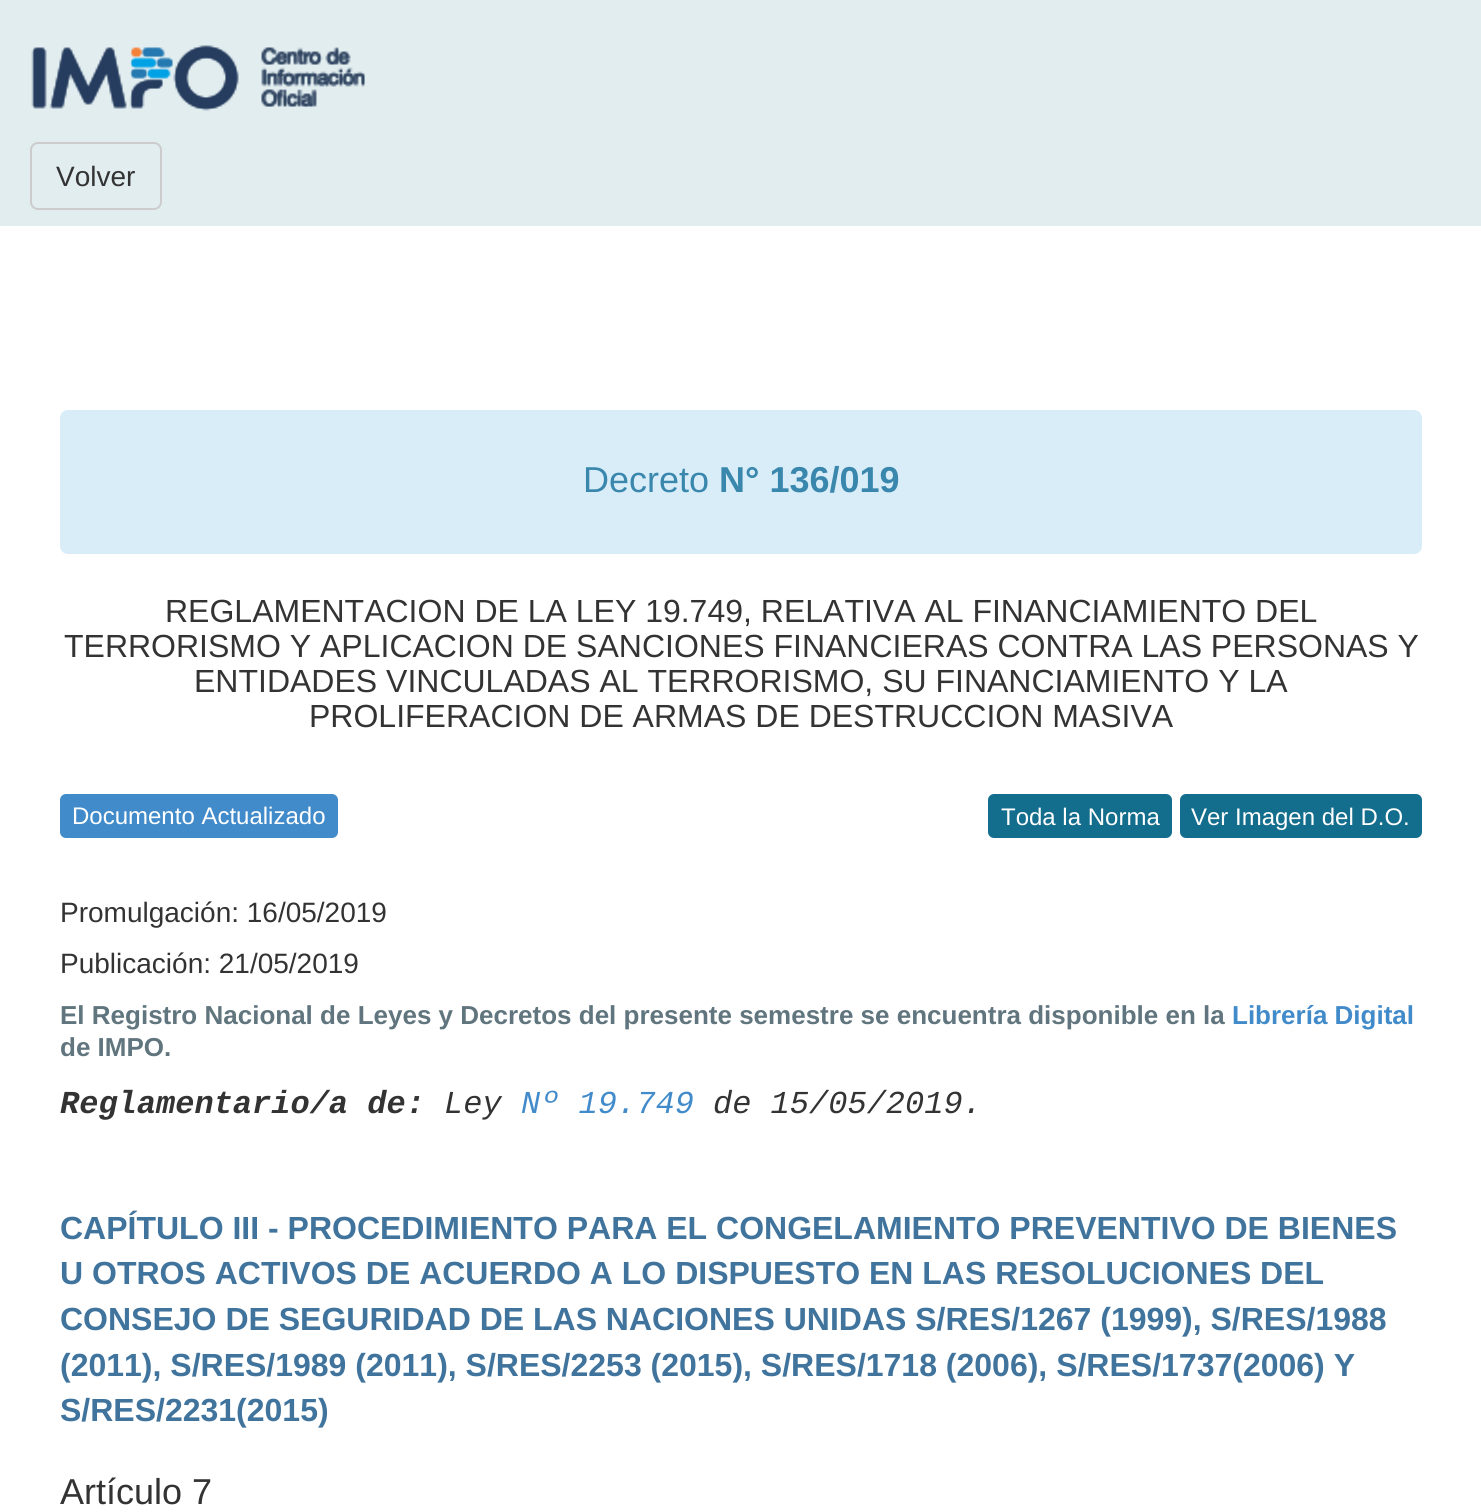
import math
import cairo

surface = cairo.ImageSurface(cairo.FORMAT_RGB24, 1481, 1512)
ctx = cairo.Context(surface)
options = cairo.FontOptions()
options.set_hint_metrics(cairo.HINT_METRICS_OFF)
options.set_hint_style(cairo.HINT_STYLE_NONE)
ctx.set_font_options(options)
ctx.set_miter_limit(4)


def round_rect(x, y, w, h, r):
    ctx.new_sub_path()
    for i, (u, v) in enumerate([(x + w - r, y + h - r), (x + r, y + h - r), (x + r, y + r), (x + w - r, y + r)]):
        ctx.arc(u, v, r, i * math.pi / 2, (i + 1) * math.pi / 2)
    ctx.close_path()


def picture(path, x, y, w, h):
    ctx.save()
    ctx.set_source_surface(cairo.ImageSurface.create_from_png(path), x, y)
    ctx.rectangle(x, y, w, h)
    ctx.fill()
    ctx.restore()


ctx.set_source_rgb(1, 1, 1)
ctx.paint()
ctx.set_source_rgb(0.886, 0.929, 0.941)
ctx.rectangle(0, 0, 1481, 226)
ctx.fill()
picture("img1.png", 31, 45, 334, 66)
picture("img2.png", 31, 45, 334, 66)
round_rect(31, 143, 130, 66, 7)
ctx.set_source_rgb(0.8, 0.8, 0.8)
ctx.stroke()
ctx.select_font_face("Liberation Sans")
ctx.set_font_size(28)
ctx.set_source_rgb(0.2, 0.2, 0.2)
ctx.move_to(56, 186)
ctx.show_text("Volver")
ctx.set_source_rgb(0.851, 0.929, 0.969)
round_rect(60, 410, 1362, 144, 8)
ctx.fill()
ctx.set_font_size(36)
ctx.set_source_rgb(0.227, 0.529, 0.678)
ctx.move_to(583, 492)
ctx.show_text("Decreto")
ctx.select_font_face("Liberation Sans", cairo.FONT_SLANT_NORMAL, cairo.FONT_WEIGHT_BOLD)
ctx.move_to(719, 492)
ctx.show_text("N° 136/019")
ctx.select_font_face("Liberation Sans")
ctx.set_font_size(32)
ctx.set_source_rgb(0.2, 0.2, 0.2)
ctx.move_to(165, 622)
ctx.show_text("REGLAMENTACION DE LA LEY 19.749, RELATIVA AL FINANCIAMIENTO DEL")
ctx.move_to(64, 657)
ctx.show_text("TERRORISMO Y APLICACION DE SANCIONES FINANCIERAS CONTRA LAS PERSONAS Y")
ctx.move_to(194, 692)
ctx.show_text("ENTIDADES VINCULADAS AL TERRORISMO, SU FINANCIAMIENTO Y LA")
ctx.move_to(309, 727)
ctx.show_text("PROLIFERACION DE ARMAS DE DESTRUCCION MASIVA")
ctx.set_source_rgb(0.259, 0.545, 0.792)
round_rect(60, 794, 278, 44, 6)
ctx.fill()
ctx.set_font_size(24)
ctx.set_source_rgb(1, 1, 1)
ctx.move_to(72, 824)
ctx.show_text("Documento Actualizado")
ctx.set_source_rgb(0.075, 0.427, 0.553)
round_rect(989, 795, 182, 42, 5)
ctx.fill_preserve()
ctx.stroke()
ctx.set_source_rgb(1, 1, 1)
ctx.move_to(1001, 825)
ctx.show_text("Toda la Norma")
ctx.set_source_rgb(0.075, 0.427, 0.553)
round_rect(1181, 795, 240, 42, 5)
ctx.fill_preserve()
ctx.stroke()
ctx.set_source_rgb(1, 1, 1)
ctx.move_to(1191, 825)
ctx.show_text("Ver Imagen del D.O.")
ctx.set_font_size(28)
ctx.set_source_rgb(0.2, 0.2, 0.2)
ctx.move_to(60, 922)
ctx.show_text("Promulgación: 16/05/2019")
ctx.move_to(60, 973)
ctx.show_text("Publicación: 21/05/2019")
ctx.select_font_face("Liberation Sans", cairo.FONT_SLANT_NORMAL, cairo.FONT_WEIGHT_BOLD)
ctx.set_font_size(26)
ctx.set_source_rgb(0.376, 0.459, 0.494)
ctx.move_to(60, 1024)
ctx.show_text("El Registro Nacional de Leyes y Decretos del presente semestre se encuentra disponible en la")
ctx.set_source_rgb(0.259, 0.545, 0.792)
ctx.move_to(1232, 1024)
ctx.show_text("Librería Digital")
ctx.set_source_rgb(0.376, 0.459, 0.494)
ctx.move_to(60, 1056)
ctx.show_text("de IMPO.")
ctx.select_font_face("Liberation Mono", cairo.FONT_SLANT_ITALIC, cairo.FONT_WEIGHT_BOLD)
ctx.set_font_size(32)
ctx.set_source_rgb(0.2, 0.2, 0.2)
ctx.move_to(60, 1113)
ctx.show_text("Reglamentario/a de:")
ctx.select_font_face("Liberation Mono", cairo.FONT_SLANT_ITALIC)
ctx.move_to(444, 1113)
ctx.show_text("Ley")
ctx.set_source_rgb(0.259, 0.545, 0.792)
ctx.move_to(521, 1113)
ctx.show_text("Nº 19.749")
ctx.set_source_rgb(0.2, 0.2, 0.2)
ctx.move_to(713, 1113)
ctx.show_text("de 15/05/2019.")
ctx.select_font_face("Liberation Sans", cairo.FONT_SLANT_NORMAL, cairo.FONT_WEIGHT_BOLD)
ctx.set_source_rgb(0.251, 0.455, 0.616)
ctx.move_to(60, 1239)
ctx.show_text("CAPÍTULO III - PROCEDIMIENTO PARA EL CONGELAMIENTO PREVENTIVO DE BIENES")
ctx.move_to(60, 1284)
ctx.show_text("U OTROS ACTIVOS DE ACUERDO A LO DISPUESTO EN LAS RESOLUCIONES DEL")
ctx.move_to(60, 1330)
ctx.show_text("CONSEJO DE SEGURIDAD DE LAS NACIONES UNIDAS S/RES/1267 (1999), S/RES/1988")
ctx.move_to(60, 1376)
ctx.show_text("(2011), S/RES/1989 (2011), S/RES/2253 (2015), S/RES/1718 (2006), S/RES/1737(2006) Y")
ctx.move_to(60, 1421)
ctx.show_text("S/RES/2231(2015)")
ctx.select_font_face("Liberation Sans")
ctx.set_font_size(36)
ctx.set_source_rgb(0.2, 0.2, 0.2)
ctx.move_to(60, 1504)
ctx.show_text("Artículo 7")
surface.write_to_png("page.png")
